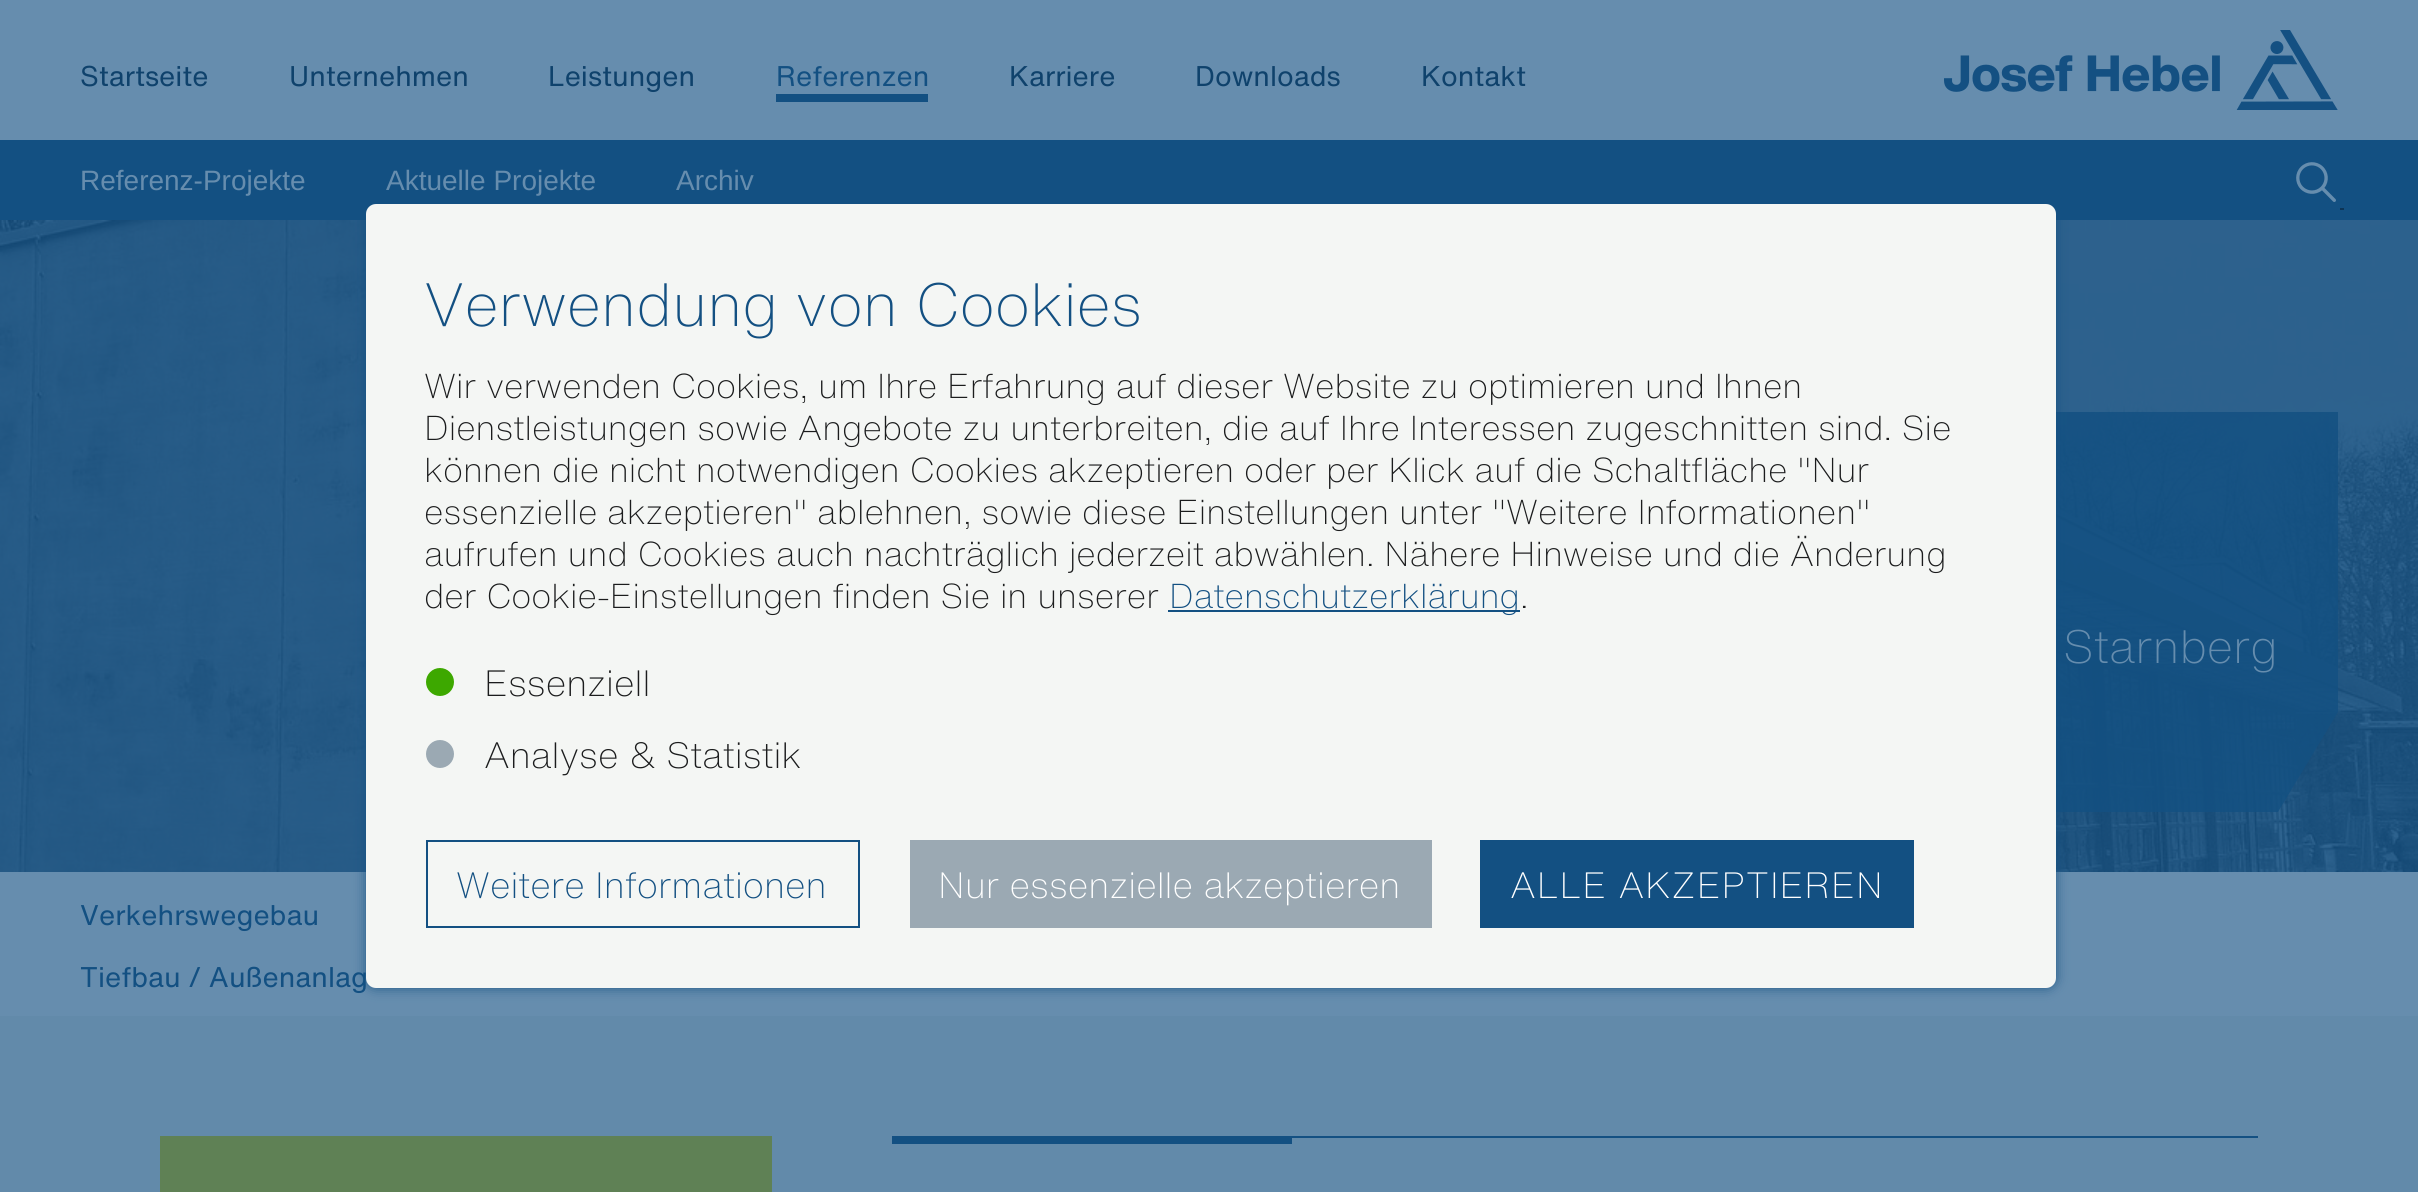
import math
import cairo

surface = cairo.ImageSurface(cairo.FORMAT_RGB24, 2418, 1192)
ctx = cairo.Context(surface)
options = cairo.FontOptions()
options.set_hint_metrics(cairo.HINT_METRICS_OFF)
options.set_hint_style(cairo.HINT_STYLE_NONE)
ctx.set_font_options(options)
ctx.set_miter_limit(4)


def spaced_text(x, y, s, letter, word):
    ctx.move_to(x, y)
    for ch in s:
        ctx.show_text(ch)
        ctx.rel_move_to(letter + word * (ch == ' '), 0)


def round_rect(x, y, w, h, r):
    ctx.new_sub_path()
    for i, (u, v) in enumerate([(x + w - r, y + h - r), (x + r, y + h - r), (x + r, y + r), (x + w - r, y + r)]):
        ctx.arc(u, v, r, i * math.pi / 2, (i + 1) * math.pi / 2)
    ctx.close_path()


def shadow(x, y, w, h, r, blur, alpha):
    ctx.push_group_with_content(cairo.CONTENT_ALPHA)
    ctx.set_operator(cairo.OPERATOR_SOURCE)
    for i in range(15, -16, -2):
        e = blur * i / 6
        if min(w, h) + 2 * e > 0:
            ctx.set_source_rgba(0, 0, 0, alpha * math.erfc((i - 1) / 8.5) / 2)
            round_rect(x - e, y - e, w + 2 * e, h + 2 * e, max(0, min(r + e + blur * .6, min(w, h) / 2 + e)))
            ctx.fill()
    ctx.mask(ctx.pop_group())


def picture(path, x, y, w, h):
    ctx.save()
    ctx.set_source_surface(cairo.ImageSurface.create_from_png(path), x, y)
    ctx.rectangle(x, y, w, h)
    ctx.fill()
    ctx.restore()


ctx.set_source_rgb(0.4, 0.553, 0.682)
ctx.paint()
ctx.select_font_face("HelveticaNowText")
ctx.set_font_size(28)
ctx.set_source_rgb(0.059, 0.259, 0.424)
ctx.move_to(80, 86)
ctx.show_text("Startseite")
ctx.move_to(289, 86)
ctx.show_text("Unternehmen")
ctx.move_to(548, 86)
ctx.show_text("Leistungen")
ctx.set_source_rgb(0.078, 0.314, 0.51)
ctx.move_to(776, 86)
ctx.show_text("Referenzen")
ctx.rectangle(776, 94, 152, 8)
ctx.fill()
ctx.set_source_rgb(0.059, 0.259, 0.424)
ctx.move_to(1009, 86)
ctx.show_text("Karriere")
ctx.move_to(1195, 86)
ctx.show_text("Downloads")
ctx.move_to(1421, 86)
ctx.show_text("Kontakt")
picture("img1.png", 1944, 30, 394, 80)
ctx.set_source_rgb(0.078, 0.314, 0.51)
ctx.rectangle(0, 140, 2418, 80)
ctx.fill()
ctx.select_font_face("Liberation Sans")
ctx.set_source_rgb(0.4, 0.553, 0.682)
ctx.move_to(80, 190)
ctx.show_text("Referenz-Projekte")
ctx.move_to(386, 190)
ctx.show_text("Aktuelle Projekte")
ctx.move_to(676, 190)
ctx.show_text("Archiv")
picture("img2.png", 2296, 162, 40, 40)
ctx.set_source_rgb(0.051, 0.204, 0.333)
ctx.rectangle(2340, 208, 4, 2)
ctx.fill()
picture("img3.png", 0, 220, 2418, 652)
ctx.set_source_rgba(0.078, 0.314, 0.51, 0.85)
ctx.rectangle(2056, 412, 222, 400)
ctx.fill()
ctx.select_font_face("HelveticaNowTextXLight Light")
ctx.set_font_size(46)
ctx.set_source_rgb(0.4, 0.553, 0.682)
ctx.move_to(2063, 663)
ctx.show_text("Starnberg")
ctx.set_source_rgba(0.078, 0.314, 0.51, 0.85)
ctx.rectangle(2278, 412, 60, 300)
ctx.fill()
ctx.new_path()
ctx.move_to(2278, 712)
ctx.line_to(2338, 712)
ctx.line_to(2308, 762)
ctx.close_path()
ctx.fill()
ctx.new_path()
ctx.move_to(2278, 812)
ctx.line_to(2278, 712)
ctx.line_to(2308, 762)
ctx.close_path()
ctx.fill()
ctx.select_font_face("HelveticaNowText")
ctx.set_font_size(28)
ctx.set_source_rgb(0.078, 0.314, 0.51)
ctx.move_to(80, 925)
ctx.show_text("Verkehrswegebau")
ctx.move_to(80, 987)
ctx.show_text("Tiefbau / Außenanlag")
ctx.set_source_rgb(0.384, 0.541, 0.667)
ctx.rectangle(0, 1016, 2418, 176)
ctx.fill()
ctx.set_source_rgb(0.373, 0.506, 0.333)
ctx.rectangle(160, 1136, 612, 56)
ctx.fill()
ctx.set_source_rgb(0.078, 0.314, 0.51)
ctx.rectangle(892, 1136, 1366, 2)
ctx.fill()
ctx.rectangle(892, 1138, 400, 6)
ctx.fill()
ctx.set_source_rgb(0.078, 0.314, 0.51)
shadow(366, 204, 1690, 784, 10, 6, 0.85)
ctx.set_source_rgb(0.957, 0.961, 0.957)
round_rect(366, 204, 1690, 784, 10)
ctx.fill()
ctx.select_font_face("HelveticaNowTextXLight Light")
ctx.set_font_size(60)
ctx.set_source_rgb(0.078, 0.314, 0.51)
ctx.move_to(424, 326)
ctx.show_text("Verwendung von Cookies")
ctx.set_font_size(34)
ctx.set_source_rgb(0.106, 0.11, 0.114)
ctx.move_to(424, 398)
ctx.show_text("Wir verwenden Cookies, um Ihre Erfahrung auf dieser Website zu optimieren und Ihnen")
ctx.move_to(424, 440)
ctx.show_text("Dienstleistungen sowie Angebote zu unterbreiten, die auf Ihre Interessen zugeschnitten sind. Sie")
ctx.move_to(424, 482)
ctx.show_text("können die nicht notwendigen Cookies akzeptieren oder per Klick auf die Schaltfläche \"Nur")
ctx.move_to(424, 524)
ctx.show_text("essenzielle akzeptieren\" ablehnen, sowie diese Einstellungen unter \"Weitere Informationen\"")
ctx.move_to(424, 566)
ctx.show_text("aufrufen und Cookies auch nachträglich jederzeit abwählen. Nähere Hinweise und die Änderung")
ctx.move_to(424, 608)
ctx.show_text("der Cookie-Einstellungen finden Sie in unserer")
ctx.set_source_rgb(0.078, 0.314, 0.51)
ctx.rectangle(1168, 610, 352, 2)
ctx.fill()
ctx.move_to(1169, 608)
ctx.show_text("Datenschutzerklärung")
ctx.set_source_rgb(0.106, 0.11, 0.114)
ctx.move_to(1520, 608)
ctx.show_text(".")
ctx.set_source_rgb(0.239, 0.659, 0)
ctx.new_path()
ctx.arc(440, 682, 14, 0, 2 * math.pi)
ctx.fill()
ctx.set_font_size(36)
ctx.set_source_rgb(0.106, 0.11, 0.114)
ctx.move_to(484, 696)
ctx.show_text("Essenziell")
ctx.set_source_rgb(0.608, 0.663, 0.702)
ctx.new_path()
ctx.arc(440, 754, 14, 0, 2 * math.pi)
ctx.fill()
ctx.set_source_rgb(0.106, 0.11, 0.114)
ctx.move_to(484, 768)
ctx.show_text("Analyse & Statistik")
ctx.rectangle(427, 841, 432, 86)
ctx.set_source_rgb(0.078, 0.314, 0.51)
ctx.stroke()
ctx.move_to(456, 898)
ctx.show_text("Weitere Informationen")
ctx.set_source_rgb(0.608, 0.663, 0.702)
ctx.rectangle(910, 840, 522, 88)
ctx.fill()
ctx.set_source_rgb(1, 1, 1)
ctx.move_to(938, 898)
ctx.show_text("Nur essenzielle akzeptieren")
ctx.set_source_rgb(0.078, 0.314, 0.51)
ctx.rectangle(1480, 840, 434, 88)
ctx.fill()
ctx.set_source_rgb(1, 1, 1)
spaced_text(1510, 898, "ALLE AKZEPTIEREN", 0.9, 0)
surface.write_to_png("page.png")
